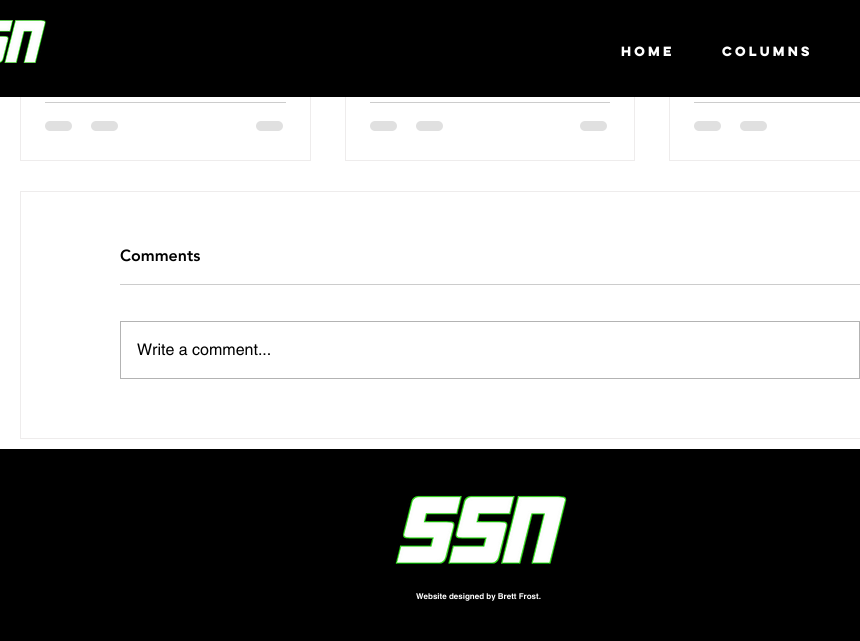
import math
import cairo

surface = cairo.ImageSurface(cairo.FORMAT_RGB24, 860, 641)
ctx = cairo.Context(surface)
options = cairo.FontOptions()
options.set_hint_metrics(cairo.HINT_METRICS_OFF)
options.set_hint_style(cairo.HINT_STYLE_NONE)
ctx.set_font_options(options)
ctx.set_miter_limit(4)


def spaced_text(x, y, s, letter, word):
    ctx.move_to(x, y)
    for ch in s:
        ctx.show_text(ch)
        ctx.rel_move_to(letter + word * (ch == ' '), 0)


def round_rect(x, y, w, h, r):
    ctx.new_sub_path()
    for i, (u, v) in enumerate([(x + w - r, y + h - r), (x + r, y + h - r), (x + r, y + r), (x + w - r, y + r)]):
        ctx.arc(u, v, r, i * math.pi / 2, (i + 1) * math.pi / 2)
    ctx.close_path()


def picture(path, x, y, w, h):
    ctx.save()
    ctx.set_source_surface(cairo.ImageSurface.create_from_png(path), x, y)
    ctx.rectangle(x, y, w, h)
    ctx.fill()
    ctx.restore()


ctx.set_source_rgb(1, 1, 1)
ctx.paint()
ctx.rectangle(20.5, -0.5, 290, 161)
ctx.set_source_rgb(0.933, 0.925, 0.925)
ctx.set_line_width(1)
ctx.stroke()
ctx.rectangle(345.5, -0.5, 289, 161)
ctx.stroke()
ctx.rectangle(669.5, -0.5, 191, 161)
ctx.stroke()
ctx.set_source_rgb(0, 0, 0)
ctx.rectangle(0, 0, 860, 97)
ctx.fill()
picture("img1.png", 0, 20, 46, 43)
ctx.select_font_face("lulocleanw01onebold", cairo.FONT_SLANT_NORMAL, cairo.FONT_WEIGHT_BOLD)
ctx.set_font_size(12)
ctx.set_source_rgb(1, 1, 1)
spaced_text(621, 56, "Home", 0.5, 0)
spaced_text(722, 56, "Columns", 0.5, 0)
ctx.set_source_rgb(0.8, 0.8, 0.8)
ctx.rectangle(45, 102, 241, 1)
ctx.fill()
ctx.set_source_rgb(0.878, 0.878, 0.878)
round_rect(45, 121, 27, 10, 5)
ctx.fill()
round_rect(91, 121, 27, 10, 5)
ctx.fill()
round_rect(256, 121, 27, 10, 5)
ctx.fill()
ctx.set_source_rgb(0.8, 0.8, 0.8)
ctx.rectangle(370, 102, 240, 1)
ctx.fill()
ctx.set_source_rgb(0.878, 0.878, 0.878)
round_rect(370, 121, 27, 10, 5)
ctx.fill()
round_rect(416, 121, 27, 10, 5)
ctx.fill()
round_rect(580, 121, 27, 10, 5)
ctx.fill()
ctx.set_source_rgb(0.8, 0.8, 0.8)
ctx.rectangle(694, 102, 166, 1)
ctx.fill()
ctx.set_source_rgb(0.878, 0.878, 0.878)
round_rect(694, 121, 27, 10, 5)
ctx.fill()
round_rect(740, 121, 27, 10, 5)
ctx.fill()
ctx.rectangle(20.5, 191.5, 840, 247)
ctx.set_source_rgb(0.933, 0.925, 0.925)
ctx.stroke()
ctx.select_font_face("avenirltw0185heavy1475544 Black")
ctx.set_font_size(16)
ctx.set_source_rgb(0, 0, 0)
ctx.move_to(120, 261)
ctx.show_text("Comments")
ctx.set_source_rgb(0.8, 0.8, 0.8)
ctx.rectangle(120, 284, 740, 1)
ctx.fill()
ctx.rectangle(120.5, 321.5, 739, 57)
ctx.set_source_rgb(0.702, 0.702, 0.702)
ctx.stroke()
ctx.select_font_face("helvetica")
ctx.set_source_rgb(0, 0, 0)
ctx.move_to(137, 355)
ctx.show_text("Write a comment...")
ctx.rectangle(0, 449, 860, 192)
ctx.fill()
picture("img2.png", 395, 495, 172, 69)
ctx.select_font_face("helvetica", cairo.FONT_SLANT_NORMAL, cairo.FONT_WEIGHT_BOLD)
ctx.set_font_size(8)
ctx.set_source_rgb(1, 1, 1)
ctx.move_to(416, 599)
ctx.show_text("Website designed by Brett Frost.")
surface.write_to_png("page.png")
